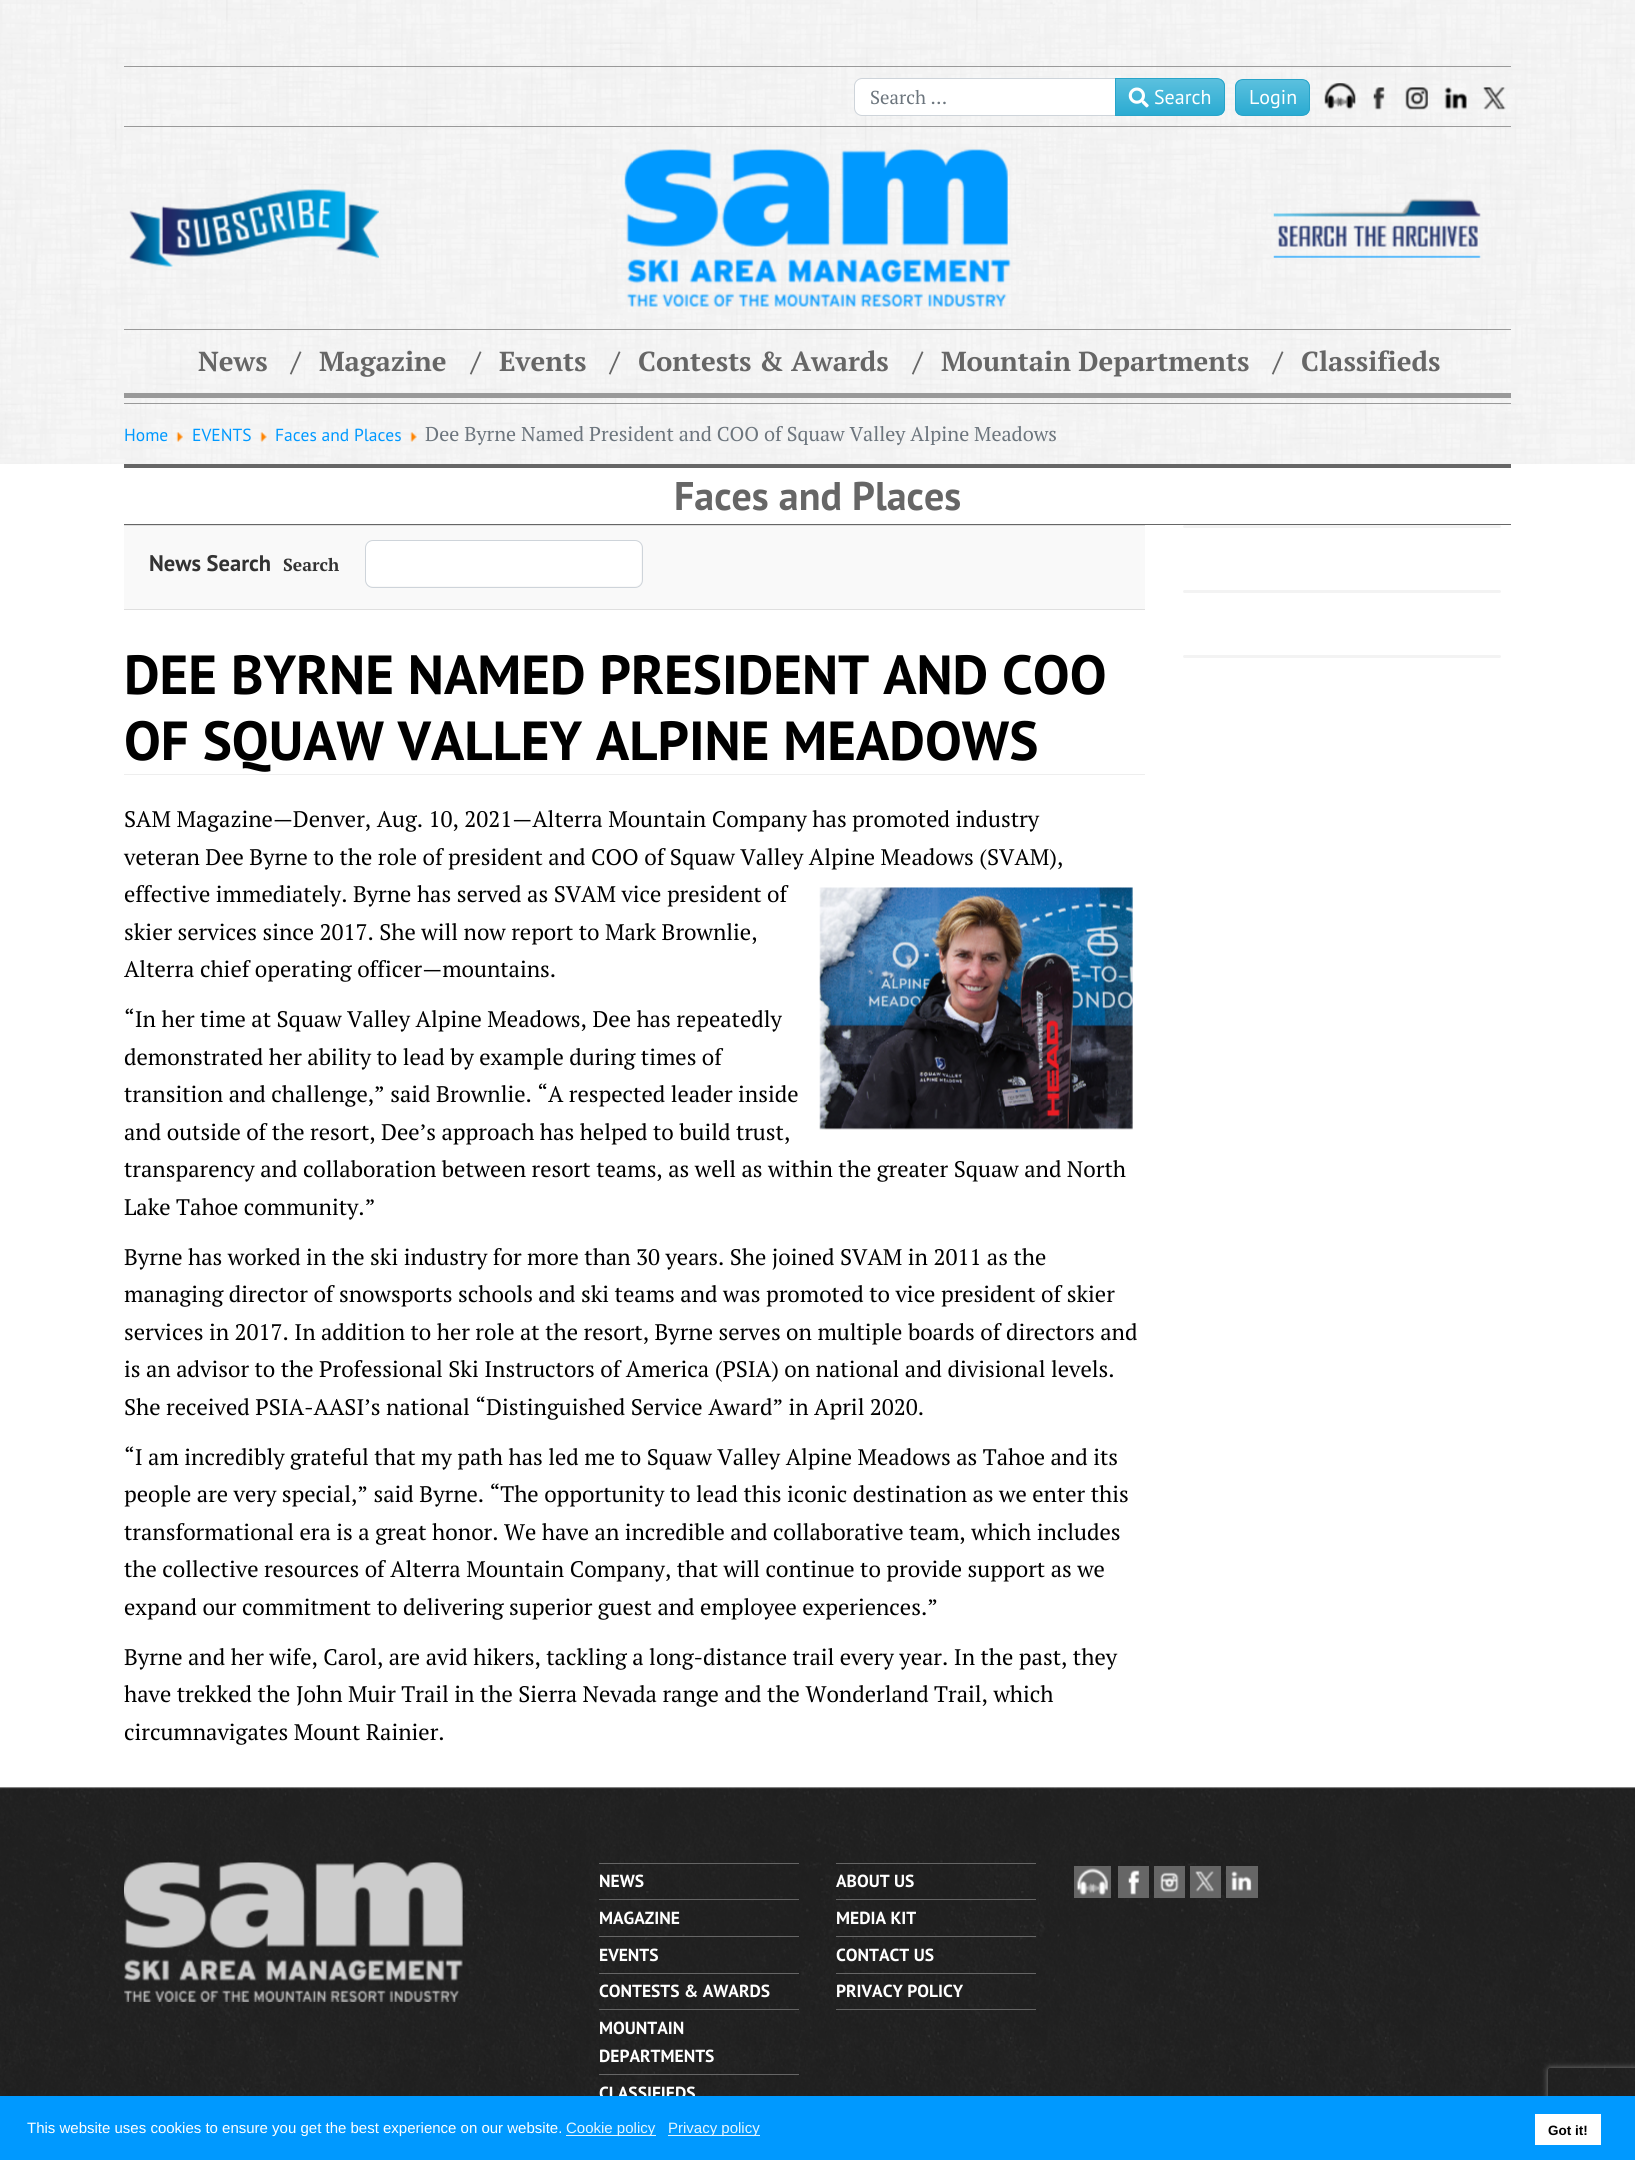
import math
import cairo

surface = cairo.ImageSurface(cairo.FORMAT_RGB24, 1635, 2160)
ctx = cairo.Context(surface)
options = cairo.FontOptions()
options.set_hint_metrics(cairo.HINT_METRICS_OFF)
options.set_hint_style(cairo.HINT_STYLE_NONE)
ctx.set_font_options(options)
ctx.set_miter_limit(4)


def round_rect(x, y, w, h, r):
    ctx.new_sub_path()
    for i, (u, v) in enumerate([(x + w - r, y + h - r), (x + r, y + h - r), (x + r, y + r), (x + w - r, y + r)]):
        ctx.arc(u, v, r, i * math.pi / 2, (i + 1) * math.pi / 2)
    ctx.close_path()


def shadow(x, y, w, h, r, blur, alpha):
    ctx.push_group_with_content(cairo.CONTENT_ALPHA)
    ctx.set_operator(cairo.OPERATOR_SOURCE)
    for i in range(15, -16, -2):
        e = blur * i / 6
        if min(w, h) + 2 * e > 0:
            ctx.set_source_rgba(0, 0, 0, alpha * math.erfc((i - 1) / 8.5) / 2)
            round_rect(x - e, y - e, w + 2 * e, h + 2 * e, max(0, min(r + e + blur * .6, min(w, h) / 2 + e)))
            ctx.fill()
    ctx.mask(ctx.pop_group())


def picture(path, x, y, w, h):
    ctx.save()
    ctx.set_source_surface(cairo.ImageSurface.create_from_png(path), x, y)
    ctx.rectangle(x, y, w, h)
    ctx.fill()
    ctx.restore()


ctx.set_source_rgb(1, 1, 1)
ctx.paint()
picture("img1.png", 0, 0, 1635, 1789)
ctx.set_source_rgb(0.6, 0.6, 0.6)
ctx.rectangle(124, 66, 1387, 1)
ctx.fill()
ctx.rectangle(124, 126, 1387, 1)
ctx.fill()
ctx.set_source_rgb(1, 1, 1)
ctx.new_path()
ctx.move_to(861, 79)
ctx.line_to(1115, 79)
ctx.line_to(1115, 115)
ctx.line_to(861, 115)
ctx.curve_to(857.5, 115, 855, 112.5, 855, 109)
ctx.line_to(855, 85)
ctx.curve_to(855, 81.5, 857.5, 79, 861, 79)
ctx.close_path()
ctx.fill()
ctx.new_path()
ctx.move_to(862, 78.5)
ctx.line_to(1115.5, 78.5)
ctx.line_to(1115.5, 115.5)
ctx.line_to(862, 115.5)
ctx.curve_to(858, 115.5, 854.5, 112, 854.5, 108)
ctx.line_to(854.5, 86)
ctx.curve_to(854.5, 82, 858, 78.5, 862, 78.5)
ctx.close_path()
ctx.set_source_rgb(0.808, 0.831, 0.855)
ctx.set_line_width(1)
ctx.stroke()
ctx.select_font_face("PT Serif")
ctx.set_font_size(18.75)
ctx.set_source_rgb(0.424, 0.459, 0.49)
ctx.move_to(870, 104)
ctx.show_text("Search …")
ctx.save()
ctx.new_path()
ctx.move_to(1115, 78)
ctx.line_to(1217, 78)
ctx.curve_to(1221.5, 78, 1225, 81.5, 1225, 86)
ctx.line_to(1225, 108)
ctx.curve_to(1225, 112.5, 1221.5, 116, 1217, 116)
ctx.line_to(1115, 116)
ctx.close_path()
ctx.clip()
gradient = cairo.LinearGradient(1170, 79, 1170, 115)
gradient.add_color_stop_rgba(0, 0.357, 0.753, 0.871, 1)
gradient.add_color_stop_rgba(1, 0.165, 0.671, 0.824, 1)
ctx.set_source(gradient)
ctx.rectangle(1116, 79, 109, 36)
ctx.fill()
ctx.restore()
ctx.new_path()
ctx.move_to(1115.5, 78.5)
ctx.line_to(1217, 78.5)
ctx.curve_to(1221, 78.5, 1224.5, 82, 1224.5, 86)
ctx.line_to(1224.5, 108)
ctx.curve_to(1224.5, 112, 1221, 115.5, 1217, 115.5)
ctx.line_to(1115.5, 115.5)
ctx.close_path()
ctx.set_source_rgb(0.157, 0.643, 0.788)
ctx.stroke()
picture("img2.png", 1128, 87, 21, 21)
ctx.select_font_face("PT Sans")
ctx.set_font_size(20)
ctx.set_source_rgb(1, 1, 1)
ctx.move_to(1154, 104)
ctx.show_text("Search")
ctx.save()
round_rect(1235, 79, 75, 37, 8)
ctx.clip()
gradient = cairo.LinearGradient(1273, 80, 1273, 115)
gradient.add_color_stop_rgba(0, 0.357, 0.753, 0.871, 1)
gradient.add_color_stop_rgba(1, 0.165, 0.671, 0.824, 1)
ctx.set_source(gradient)
ctx.rectangle(1235, 80, 75, 35)
ctx.fill()
ctx.restore()
round_rect(1235.5, 79.5, 74, 36, 7.5)
ctx.set_source_rgb(0.157, 0.643, 0.788)
ctx.stroke()
ctx.set_source_rgb(1, 1, 1)
ctx.move_to(1249, 104)
ctx.show_text("Login")
picture("img3.png", 1324, 83, 32, 27)
picture("img4.png", 1373, 87, 12, 23)
picture("img5.png", 1405, 87, 23, 23)
picture("img6.png", 1444, 87, 23, 23)
picture("img7.png", 1483, 87, 23, 23)
ctx.set_source_rgb(0.6, 0.6, 0.6)
ctx.rectangle(124, 329, 1387, 1)
ctx.fill()
picture("img8.png", 129, 189, 250, 78)
picture("img9.png", 624, 149, 387, 158)
picture("img10.png", 1273, 198, 208, 60)
ctx.rectangle(124, 393, 1387, 5)
ctx.fill()
ctx.select_font_face("PT Serif", cairo.FONT_SLANT_NORMAL, cairo.FONT_WEIGHT_BOLD)
ctx.set_font_size(27.5)
ctx.set_source_rgb(0.4, 0.4, 0.4)
ctx.move_to(198, 371)
ctx.show_text("News")
ctx.select_font_face("PT Serif", cairo.FONT_SLANT_ITALIC, cairo.FONT_WEIGHT_BOLD)
ctx.move_to(291, 371)
ctx.show_text("/")
ctx.select_font_face("PT Serif", cairo.FONT_SLANT_NORMAL, cairo.FONT_WEIGHT_BOLD)
ctx.move_to(319, 371)
ctx.show_text("Magazine")
ctx.select_font_face("PT Serif", cairo.FONT_SLANT_ITALIC, cairo.FONT_WEIGHT_BOLD)
ctx.move_to(471, 371)
ctx.show_text("/")
ctx.select_font_face("PT Serif", cairo.FONT_SLANT_NORMAL, cairo.FONT_WEIGHT_BOLD)
ctx.move_to(499, 371)
ctx.show_text("Events")
ctx.select_font_face("PT Serif", cairo.FONT_SLANT_ITALIC, cairo.FONT_WEIGHT_BOLD)
ctx.move_to(610, 371)
ctx.show_text("/")
ctx.select_font_face("PT Serif", cairo.FONT_SLANT_NORMAL, cairo.FONT_WEIGHT_BOLD)
ctx.move_to(638, 371)
ctx.show_text("Contests & Awards")
ctx.select_font_face("PT Serif", cairo.FONT_SLANT_ITALIC, cairo.FONT_WEIGHT_BOLD)
ctx.move_to(913, 371)
ctx.show_text("/")
ctx.select_font_face("PT Serif", cairo.FONT_SLANT_NORMAL, cairo.FONT_WEIGHT_BOLD)
ctx.move_to(941, 371)
ctx.show_text("Mountain Departments")
ctx.select_font_face("PT Serif", cairo.FONT_SLANT_ITALIC, cairo.FONT_WEIGHT_BOLD)
ctx.move_to(1273, 371)
ctx.show_text("/")
ctx.select_font_face("PT Serif", cairo.FONT_SLANT_NORMAL, cairo.FONT_WEIGHT_BOLD)
ctx.move_to(1301, 371)
ctx.show_text("Classifieds")
ctx.set_source_rgb(0.6, 0.6, 0.6)
ctx.rectangle(124, 403, 1387, 1)
ctx.fill()
ctx.select_font_face("PT Sans")
ctx.set_font_size(17.5)
ctx.set_source_rgb(0, 0.6, 1)
ctx.move_to(124, 441)
ctx.show_text("Home")
picture("img11.png", 176, 432, 7, 10)
ctx.move_to(192, 441)
ctx.show_text("EVENTS")
picture("img12.png", 260, 432, 7, 10)
ctx.move_to(275, 441)
ctx.show_text("Faces and Places")
picture("img13.png", 410, 432, 7, 10)
ctx.select_font_face("PT Serif")
ctx.set_font_size(20)
ctx.set_source_rgb(0.424, 0.459, 0.49)
ctx.move_to(425, 441)
ctx.show_text("Dee Byrne Named President and COO of Squaw Valley Alpine Meadows")
ctx.set_source_rgb(1, 1, 1)
ctx.rectangle(0, 464, 1635, 1324)
ctx.fill()
ctx.set_source_rgb(0.4, 0.4, 0.4)
ctx.rectangle(124, 464, 1387, 4)
ctx.fill()
ctx.rectangle(124, 524, 1387, 1)
ctx.fill()
ctx.select_font_face("PT Sans", cairo.FONT_SLANT_NORMAL, cairo.FONT_WEIGHT_BOLD)
ctx.set_font_size(40)
ctx.move_to(674, 510)
ctx.show_text("Faces and Places")
ctx.set_source_rgb(0.976, 0.976, 0.976)
ctx.rectangle(124, 526, 1021, 83)
ctx.fill()
ctx.set_source_rgb(0.875, 0.875, 0.875)
ctx.rectangle(124, 525, 1021, 1)
ctx.fill()
ctx.rectangle(124, 609, 1021, 1)
ctx.fill()
ctx.set_font_size(22.5)
ctx.set_source_rgb(0.2, 0.2, 0.2)
ctx.move_to(149, 571)
ctx.show_text("News Search")
ctx.select_font_face("PT Serif", cairo.FONT_SLANT_NORMAL, cairo.FONT_WEIGHT_BOLD)
ctx.set_font_size(17.5)
ctx.move_to(283, 571)
ctx.show_text("Search")
ctx.set_source_rgb(1, 1, 1)
round_rect(366, 541, 275, 45, 6)
ctx.fill()
round_rect(365.5, 540.5, 277, 47, 7.5)
ctx.set_source_rgb(0.808, 0.831, 0.855)
ctx.stroke()
ctx.set_source_rgb(0.933, 0.933, 0.933)
ctx.rectangle(124, 774, 1021, 1)
ctx.fill()
ctx.select_font_face("PT Sans", cairo.FONT_SLANT_NORMAL, cairo.FONT_WEIGHT_BOLD)
ctx.set_font_size(55)
ctx.set_source_rgb(0, 0, 0)
ctx.move_to(124, 694)
ctx.show_text("DEE BYRNE NAMED PRESIDENT AND COO")
ctx.move_to(124, 760)
ctx.show_text("OF SQUAW VALLEY ALPINE MEADOWS")
ctx.select_font_face("PT Serif")
ctx.set_font_size(22.5)
ctx.move_to(124, 827)
ctx.show_text("SAM Magazine—Denver, Aug. 10, 2021—Alterra Mountain Company has promoted industry")
ctx.move_to(124, 865)
ctx.show_text("veteran Dee Byrne to the role of president and COO of Squaw Valley Alpine Meadows (SVAM),")
ctx.move_to(124, 902)
ctx.show_text("effective immediately. Byrne has served as SVAM vice president of")
picture("img14.png", 819, 887, 314, 243)
ctx.move_to(124, 940)
ctx.show_text("skier services since 2017. She will now report to Mark Brownlie,")
ctx.move_to(124, 977)
ctx.show_text("Alterra chief operating officer—mountains.")
ctx.move_to(124, 1027)
ctx.show_text("“In her time at Squaw Valley Alpine Meadows, Dee has repeatedly")
ctx.move_to(124, 1065)
ctx.show_text("demonstrated her ability to lead by example during times of")
ctx.move_to(124, 1102)
ctx.show_text("transition and challenge,” said Brownlie. “A respected leader inside")
ctx.move_to(124, 1140)
ctx.show_text("and outside of the resort, Dee’s approach has helped to build trust,")
ctx.move_to(124, 1177)
ctx.show_text("transparency and collaboration between resort teams, as well as within the greater Squaw and North")
ctx.move_to(124, 1215)
ctx.show_text("Lake Tahoe community.”")
ctx.move_to(124, 1265)
ctx.show_text("Byrne has worked in the ski industry for more than 30 years. She joined SVAM in 2011 as the")
ctx.move_to(124, 1302)
ctx.show_text("managing director of snowsports schools and ski teams and was promoted to vice president of skier")
ctx.move_to(124, 1340)
ctx.show_text("services in 2017. In addition to her role at the resort, Byrne serves on multiple boards of directors and")
ctx.move_to(124, 1377)
ctx.show_text("is an advisor to the Professional Ski Instructors of America (PSIA) on national and divisional levels.")
ctx.move_to(124, 1415)
ctx.show_text("She received PSIA-AASI’s national “Distinguished Service Award” in April 2020.")
ctx.move_to(124, 1465)
ctx.show_text("“I am incredibly grateful that my path has led me to Squaw Valley Alpine Meadows as Tahoe and its")
ctx.move_to(124, 1502)
ctx.show_text("people are very special,” said Byrne. “The opportunity to lead this iconic destination as we enter this")
ctx.move_to(124, 1540)
ctx.show_text("transformational era is a great honor. We have an incredible and collaborative team, which includes")
ctx.move_to(124, 1577)
ctx.show_text("the collective resources of Alterra Mountain Company, that will continue to provide support as we")
ctx.move_to(124, 1615)
ctx.show_text("expand our commitment to delivering superior guest and employee experiences.”")
ctx.move_to(124, 1665)
ctx.show_text("Byrne and her wife, Carol, are avid hikers, tackling a long-distance trail every year. In the past, they")
ctx.move_to(124, 1702)
ctx.show_text("have trekked the John Muir Trail in the Sierra Nevada range and the Wonderland Trail, which")
ctx.move_to(124, 1740)
ctx.show_text("circumnavigates Mount Rainier.")
ctx.set_source_rgb(0.953, 0.953, 0.953)
round_rect(1183, 525, 318, 3, 1.5)
ctx.fill()
round_rect(1183, 590, 318, 3, 1.5)
ctx.fill()
round_rect(1183, 655, 318, 3, 1.5)
ctx.fill()
picture("img15.png", 0, 1787, 1635, 309)
picture("img16.png", 124, 1862, 339, 140)
ctx.set_source_rgb(0.4, 0.4, 0.4)
ctx.rectangle(599, 1863, 200, 1)
ctx.fill()
ctx.select_font_face("PT Sans", cairo.FONT_SLANT_NORMAL, cairo.FONT_WEIGHT_BOLD)
ctx.set_font_size(17.5)
ctx.set_source_rgb(1, 1, 1)
ctx.move_to(599, 1887)
ctx.show_text("NEWS")
ctx.set_source_rgb(0.4, 0.4, 0.4)
ctx.rectangle(599, 1899, 200, 1)
ctx.fill()
ctx.set_source_rgb(1, 1, 1)
ctx.move_to(599, 1924)
ctx.show_text("MAGAZINE")
ctx.set_source_rgb(0.4, 0.4, 0.4)
ctx.rectangle(599, 1936, 200, 1)
ctx.fill()
ctx.set_source_rgb(1, 1, 1)
ctx.move_to(599, 1961)
ctx.show_text("EVENTS")
ctx.set_source_rgb(0.4, 0.4, 0.4)
ctx.rectangle(599, 1973, 200, 1)
ctx.fill()
ctx.set_source_rgb(1, 1, 1)
ctx.move_to(599, 1997)
ctx.show_text("CONTESTS & AWARDS")
ctx.set_source_rgb(0.4, 0.4, 0.4)
ctx.rectangle(599, 2009, 200, 1)
ctx.fill()
ctx.set_source_rgb(1, 1, 1)
ctx.move_to(599, 2034)
ctx.show_text("MOUNTAIN")
ctx.move_to(599, 2062)
ctx.show_text("DEPARTMENTS")
ctx.set_source_rgb(0.4, 0.4, 0.4)
ctx.rectangle(599, 2074, 200, 1)
ctx.fill()
ctx.set_source_rgb(1, 1, 1)
ctx.move_to(599, 2099)
ctx.show_text("CLASSIFIEDS")
ctx.set_source_rgb(0.4, 0.4, 0.4)
ctx.rectangle(836, 1863, 200, 1)
ctx.fill()
ctx.set_source_rgb(1, 1, 1)
ctx.move_to(836, 1887)
ctx.show_text("ABOUT US")
ctx.set_source_rgb(0.4, 0.4, 0.4)
ctx.rectangle(836, 1899, 200, 1)
ctx.fill()
ctx.set_source_rgb(1, 1, 1)
ctx.move_to(836, 1924)
ctx.show_text("MEDIA KIT")
ctx.set_source_rgb(0.4, 0.4, 0.4)
ctx.rectangle(836, 1936, 200, 1)
ctx.fill()
ctx.set_source_rgb(1, 1, 1)
ctx.move_to(836, 1961)
ctx.show_text("CONTACT US")
ctx.set_source_rgb(0.4, 0.4, 0.4)
ctx.rectangle(836, 1973, 200, 1)
ctx.fill()
ctx.rectangle(836, 2009, 200, 1)
ctx.fill()
ctx.set_source_rgb(1, 1, 1)
ctx.move_to(836, 1997)
ctx.show_text("PRIVACY POLICY")
ctx.set_source_rgb(0.4, 0.4, 0.4)
ctx.rectangle(1074, 1866, 37, 32)
ctx.fill()
picture("img17.png", 1076, 1868, 32, 28)
ctx.rectangle(1118, 1866, 31, 32)
ctx.fill()
picture("img18.png", 1128, 1870, 12, 25)
ctx.rectangle(1154, 1866, 31, 32)
ctx.fill()
picture("img19.png", 1160, 1872, 19, 21)
ctx.rectangle(1190, 1866, 31, 32)
ctx.fill()
picture("img20.png", 1195, 1871, 19, 21)
ctx.rectangle(1226, 1866, 32, 32)
ctx.fill()
picture("img21.png", 1231, 1871, 21, 20)
ctx.save()
ctx.set_fill_rule(cairo.FILL_RULE_EVEN_ODD)
ctx.new_path()
ctx.move_to(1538, 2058)
ctx.line_to(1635, 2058)
ctx.line_to(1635, 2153)
ctx.line_to(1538, 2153)
ctx.close_path()
ctx.move_to(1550.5, 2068)
ctx.line_to(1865.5, 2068)
ctx.curve_to(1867, 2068, 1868, 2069, 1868, 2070.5)
ctx.line_to(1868, 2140.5)
ctx.curve_to(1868, 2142, 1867, 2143, 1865.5, 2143)
ctx.line_to(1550.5, 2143)
ctx.curve_to(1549, 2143, 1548, 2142, 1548, 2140.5)
ctx.line_to(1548, 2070.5)
ctx.curve_to(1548, 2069, 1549, 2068, 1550.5, 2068)
ctx.close_path()
ctx.clip()
ctx.set_source_rgb(0.502, 0.502, 0.502)
shadow(1548, 2068, 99, 75, 2.5, 3, 1)
ctx.restore()
ctx.set_source_rgb(0, 0.6, 1)
ctx.rectangle(0, 2096, 1635, 64)
ctx.fill()
ctx.select_font_face("Liberation Sans")
ctx.set_font_size(15)
ctx.set_source_rgb(1, 1, 1)
ctx.move_to(27, 2133)
ctx.show_text("This website uses cookies to ensure you get the best experience on our website.")
ctx.set_source_rgb(0.902, 0.961, 1)
ctx.rectangle(566, 2135, 90, 1)
ctx.fill()
ctx.move_to(566, 2133)
ctx.show_text("Cookie policy")
ctx.rectangle(668, 2135, 92, 1)
ctx.fill()
ctx.move_to(668, 2133)
ctx.show_text("Privacy policy")
ctx.set_source_rgb(1, 1, 1)
ctx.rectangle(1535, 2114, 66, 31)
ctx.fill()
ctx.select_font_face("Liberation Sans", cairo.FONT_SLANT_NORMAL, cairo.FONT_WEIGHT_BOLD)
ctx.set_font_size(13.5)
ctx.set_source_rgb(0, 0, 0)
ctx.move_to(1548, 2135)
ctx.show_text("Got it!")
surface.write_to_png("page.png")
